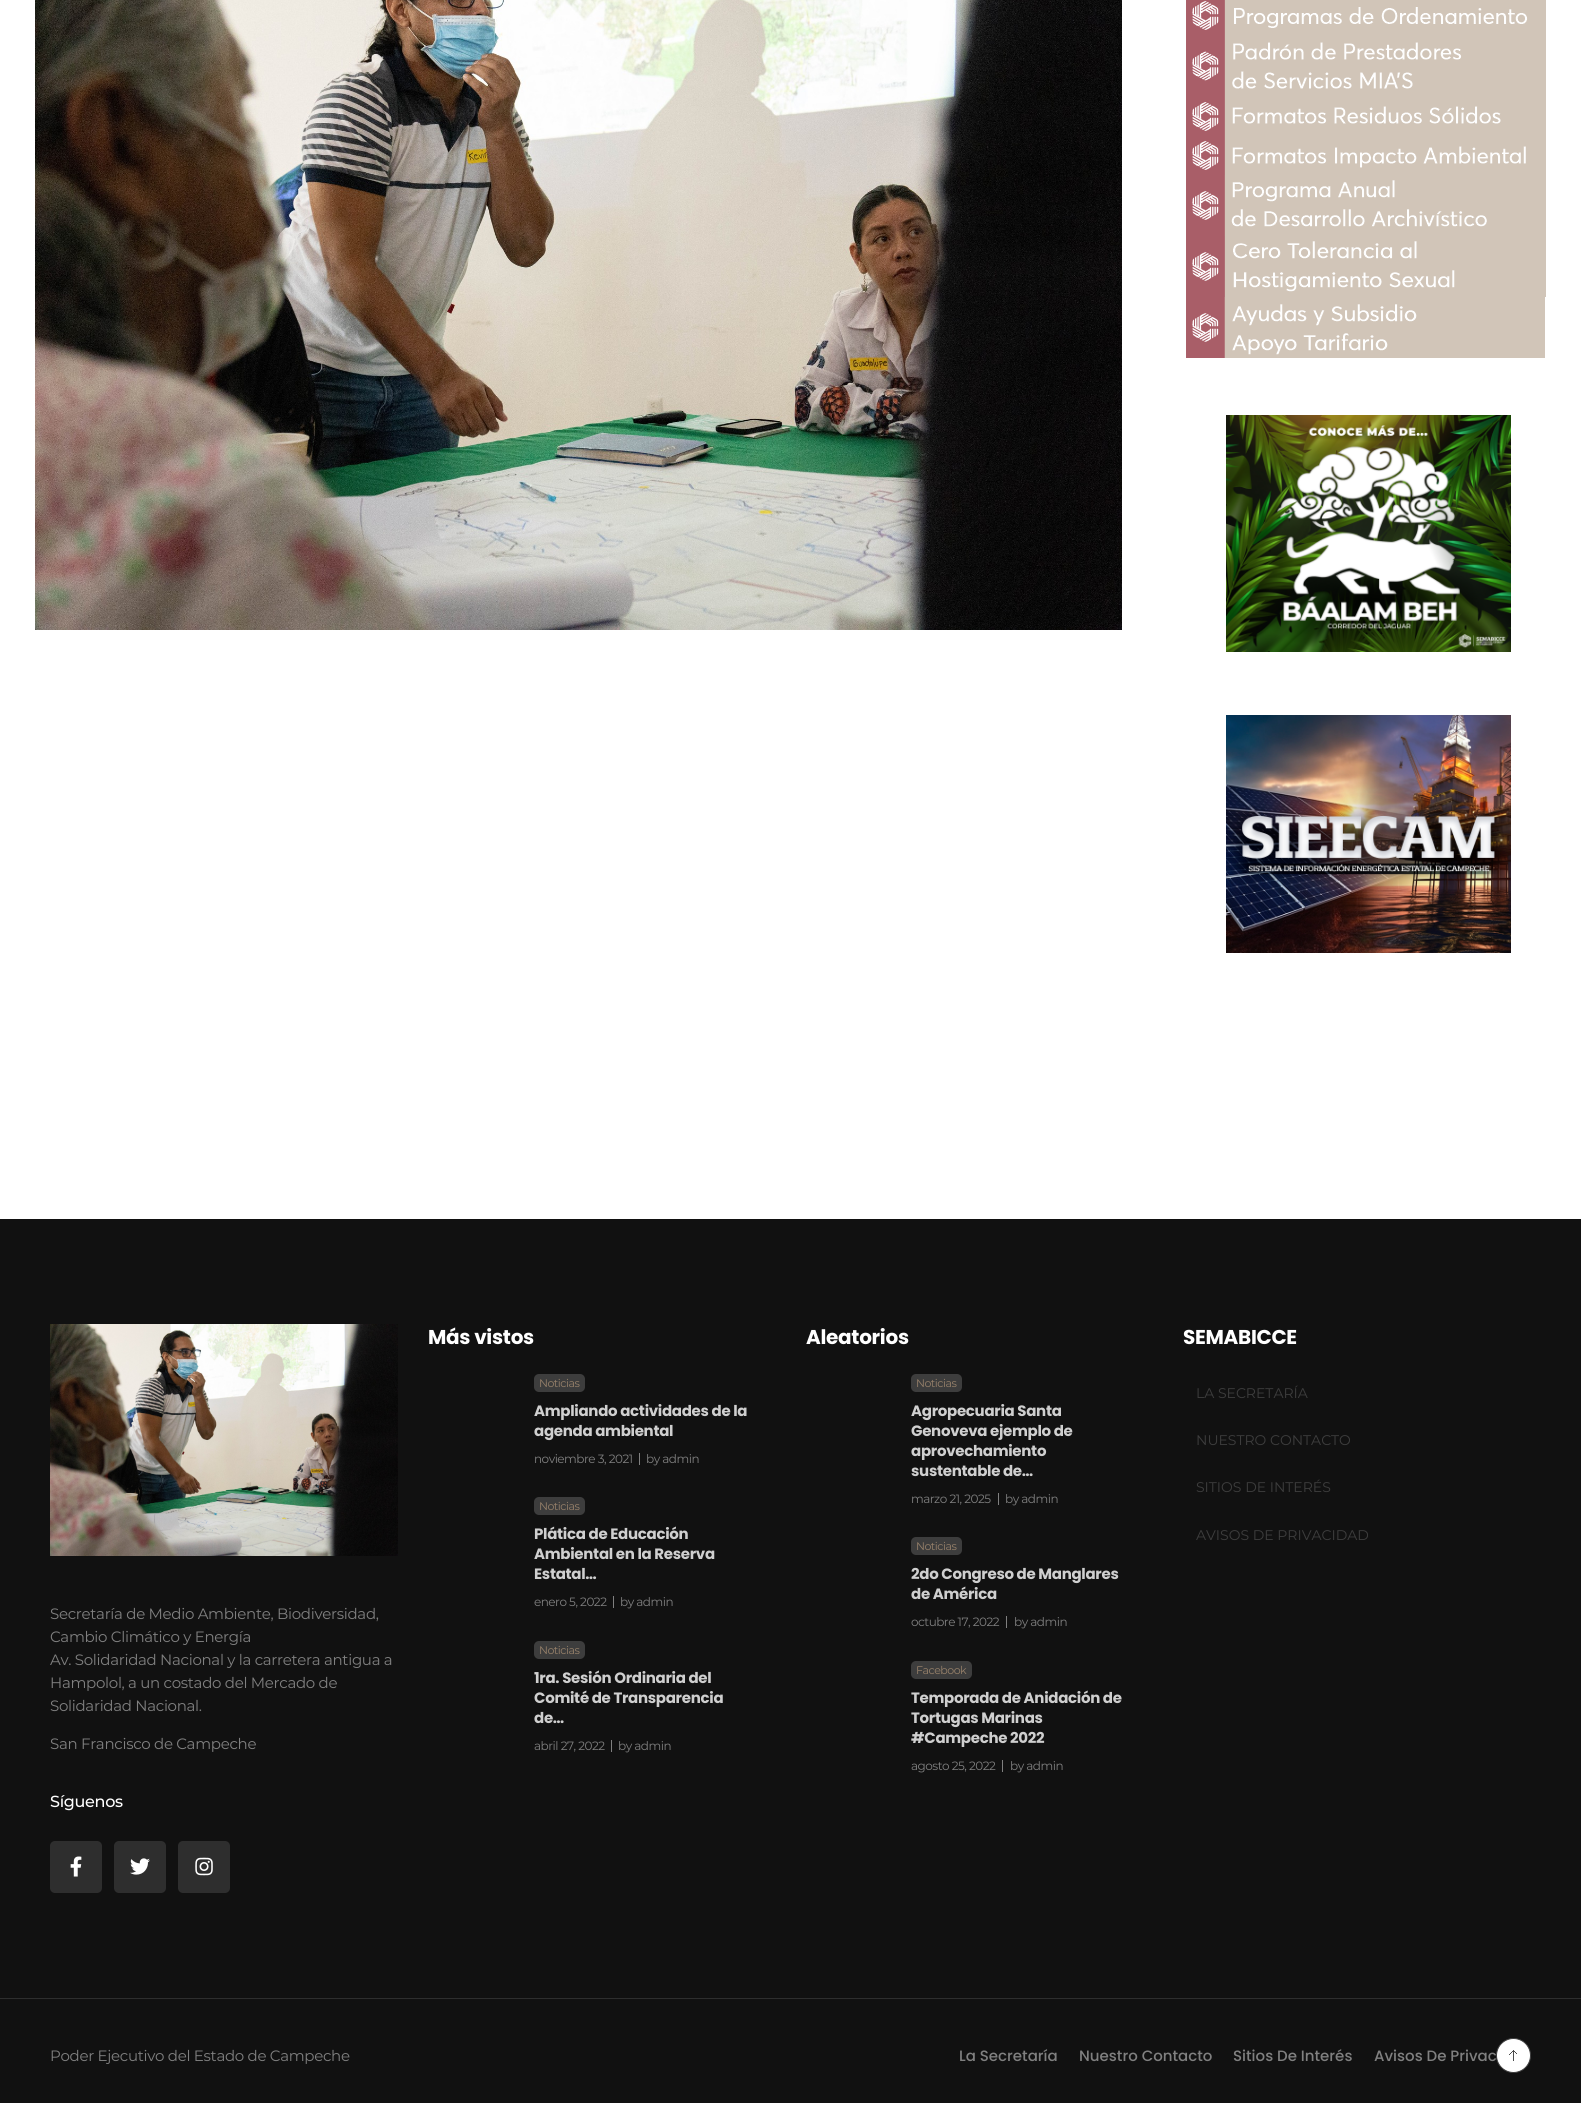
import math
import cairo

surface = cairo.ImageSurface(cairo.FORMAT_RGB24, 1581, 2103)
ctx = cairo.Context(surface)
options = cairo.FontOptions()
options.set_hint_metrics(cairo.HINT_METRICS_OFF)
options.set_hint_style(cairo.HINT_STYLE_NONE)
ctx.set_font_options(options)
ctx.set_miter_limit(4)


def spaced_text(x, y, s, letter, word):
    ctx.move_to(x, y)
    for ch in s:
        ctx.show_text(ch)
        ctx.rel_move_to(letter + word * (ch == ' '), 0)


def round_rect(x, y, w, h, r):
    ctx.new_sub_path()
    for i, (u, v) in enumerate([(x + w - r, y + h - r), (x + r, y + h - r), (x + r, y + r), (x + w - r, y + r)]):
        ctx.arc(u, v, r, i * math.pi / 2, (i + 1) * math.pi / 2)
    ctx.close_path()


def picture(path, x, y, w, h):
    ctx.save()
    ctx.set_source_surface(cairo.ImageSurface.create_from_png(path), x, y)
    ctx.rectangle(x, y, w, h)
    ctx.fill()
    ctx.restore()


ctx.set_source_rgb(1, 1, 1)
ctx.paint()
picture("img1.png", 35, 0, 1087, 630)
picture("img2.png", 1186, 0, 360, 35)
picture("img3.png", 1186, 35, 360, 62)
picture("img4.png", 1186, 97, 360, 39)
picture("img5.png", 1186, 136, 360, 39)
picture("img6.png", 1186, 175, 360, 61)
picture("img7.png", 1186, 236, 360, 61)
picture("img8.png", 1186, 297, 359, 61)
picture("img9.png", 1226, 415, 285, 237)
picture("img10.png", 1226, 715, 285, 238)
ctx.set_source_rgb(0.067, 0.067, 0.067)
ctx.rectangle(0, 1219, 1581, 779)
ctx.fill()
ctx.select_font_face("Poppins", cairo.FONT_SLANT_NORMAL, cairo.FONT_WEIGHT_BOLD)
ctx.set_font_size(20)
ctx.set_source_rgb(1, 1, 1)
spaced_text(428, 1344, "Más vistos", -0.3, 0)
ctx.set_source_rgb(0.239, 0.239, 0.239)
round_rect(534, 1374, 51, 18, 5)
ctx.fill()
ctx.select_font_face("Montserrat")
ctx.set_font_size(11)
ctx.set_source_rgb(0.592, 0.506, 0.416)
spaced_text(539, 1387, "Noticias", -0.5, 0)
ctx.select_font_face("Poppins", cairo.FONT_SLANT_NORMAL, cairo.FONT_WEIGHT_BOLD)
ctx.set_font_size(15)
ctx.set_source_rgb(0.812, 0.812, 0.812)
spaced_text(534, 1416, "Ampliando actividades de la", -0.3, 0)
spaced_text(534, 1436, "agenda ambiental", -0.3, 0)
ctx.select_font_face("Montserrat")
ctx.set_font_size(12)
ctx.set_source_rgb(0.502, 0.502, 0.502)
spaced_text(534, 1463, "noviembre 3, 2021", -0.5, 0)
ctx.rectangle(639, 1453, 1, 12)
ctx.fill()
spaced_text(646, 1463, "by admin", -0.5, 0)
ctx.set_source_rgb(0.239, 0.239, 0.239)
round_rect(534, 1497, 51, 18, 5)
ctx.fill()
ctx.set_font_size(11)
ctx.set_source_rgb(0.592, 0.506, 0.416)
spaced_text(539, 1510, "Noticias", -0.5, 0)
ctx.select_font_face("Poppins", cairo.FONT_SLANT_NORMAL, cairo.FONT_WEIGHT_BOLD)
ctx.set_font_size(15)
ctx.set_source_rgb(0.812, 0.812, 0.812)
spaced_text(534, 1539, "Plática de Educación", -0.3, 0)
spaced_text(534, 1559, "Ambiental en la Reserva", -0.3, 0)
spaced_text(534, 1579, "Estatal…", -0.3, 0)
ctx.select_font_face("Montserrat")
ctx.set_font_size(12)
ctx.set_source_rgb(0.502, 0.502, 0.502)
spaced_text(534, 1606, "enero 5, 2022", -0.5, 0)
ctx.rectangle(613, 1596, 1, 12)
ctx.fill()
spaced_text(620, 1606, "by admin", -0.5, 0)
ctx.set_source_rgb(0.239, 0.239, 0.239)
round_rect(534, 1641, 51, 18, 5)
ctx.fill()
ctx.set_font_size(11)
ctx.set_source_rgb(0.592, 0.506, 0.416)
spaced_text(539, 1654, "Noticias", -0.5, 0)
ctx.select_font_face("Poppins", cairo.FONT_SLANT_NORMAL, cairo.FONT_WEIGHT_BOLD)
ctx.set_font_size(15)
ctx.set_source_rgb(0.812, 0.812, 0.812)
spaced_text(534, 1683, "1ra. Sesión Ordinaria del", -0.3, 0)
spaced_text(534, 1703, "Comité de Transparencia", -0.3, 0)
spaced_text(534, 1723, "de…", -0.3, 0)
ctx.select_font_face("Montserrat")
ctx.set_font_size(12)
ctx.set_source_rgb(0.502, 0.502, 0.502)
spaced_text(534, 1750, "abril 27, 2022", -0.5, 0)
ctx.rectangle(611, 1740, 1, 12)
ctx.fill()
spaced_text(618, 1750, "by admin", -0.5, 0)
ctx.select_font_face("Poppins", cairo.FONT_SLANT_NORMAL, cairo.FONT_WEIGHT_BOLD)
ctx.set_font_size(20)
ctx.set_source_rgb(1, 1, 1)
spaced_text(806, 1344, "Aleatorios", -0.3, 0)
ctx.set_source_rgb(0.239, 0.239, 0.239)
round_rect(911, 1374, 51, 18, 5)
ctx.fill()
ctx.select_font_face("Montserrat")
ctx.set_font_size(11)
ctx.set_source_rgb(0.592, 0.506, 0.416)
spaced_text(916, 1387, "Noticias", -0.5, 0)
ctx.select_font_face("Poppins", cairo.FONT_SLANT_NORMAL, cairo.FONT_WEIGHT_BOLD)
ctx.set_font_size(15)
ctx.set_source_rgb(0.812, 0.812, 0.812)
spaced_text(911, 1416, "Agropecuaria Santa", -0.3, 0)
spaced_text(911, 1436, "Genoveva ejemplo de", -0.3, 0)
spaced_text(911, 1456, "aprovechamiento", -0.3, 0)
spaced_text(911, 1476, "sustentable de…", -0.3, 0)
ctx.select_font_face("Montserrat")
ctx.set_font_size(12)
ctx.set_source_rgb(0.502, 0.502, 0.502)
spaced_text(911, 1503, "marzo 21, 2025", -0.5, 0)
ctx.rectangle(998, 1493, 1, 12)
ctx.fill()
spaced_text(1005, 1503, "by admin", -0.5, 0)
ctx.set_source_rgb(0.239, 0.239, 0.239)
round_rect(911, 1537, 51, 18, 5)
ctx.fill()
ctx.set_font_size(11)
ctx.set_source_rgb(0.592, 0.506, 0.416)
spaced_text(916, 1550, "Noticias", -0.5, 0)
ctx.select_font_face("Poppins", cairo.FONT_SLANT_NORMAL, cairo.FONT_WEIGHT_BOLD)
ctx.set_font_size(15)
ctx.set_source_rgb(0.812, 0.812, 0.812)
spaced_text(911, 1579, "2do Congreso de Manglares", -0.3, 0)
spaced_text(911, 1599, "de América", -0.3, 0)
ctx.select_font_face("Montserrat")
ctx.set_font_size(12)
ctx.set_source_rgb(0.502, 0.502, 0.502)
spaced_text(911, 1626, "octubre 17, 2022", -0.5, 0)
ctx.rectangle(1006, 1616, 1, 12)
ctx.fill()
spaced_text(1014, 1626, "by admin", -0.5, 0)
ctx.set_source_rgb(0.239, 0.239, 0.239)
round_rect(911, 1661, 61, 18, 5)
ctx.fill()
ctx.set_font_size(11)
ctx.set_source_rgb(0.592, 0.506, 0.416)
spaced_text(916, 1674, "Facebook", -0.5, 0)
ctx.select_font_face("Poppins", cairo.FONT_SLANT_NORMAL, cairo.FONT_WEIGHT_BOLD)
ctx.set_font_size(15)
ctx.set_source_rgb(0.812, 0.812, 0.812)
spaced_text(911, 1703, "Temporada de Anidación de", -0.3, 0)
spaced_text(911, 1723, "Tortugas Marinas", -0.3, 0)
spaced_text(911, 1743, "#Campeche 2022", -0.3, 0)
ctx.select_font_face("Montserrat")
ctx.set_font_size(12)
ctx.set_source_rgb(0.502, 0.502, 0.502)
spaced_text(911, 1770, "agosto 25, 2022", -0.5, 0)
ctx.rectangle(1002, 1760, 1, 12)
ctx.fill()
spaced_text(1010, 1770, "by admin", -0.5, 0)
ctx.select_font_face("Poppins", cairo.FONT_SLANT_NORMAL, cairo.FONT_WEIGHT_BOLD)
ctx.set_font_size(20)
ctx.set_source_rgb(1, 1, 1)
spaced_text(1183, 1344, "SEMABICCE", -0.3, 0)
ctx.select_font_face("Montserrat")
ctx.set_font_size(14)
ctx.set_source_rgb(0.239, 0.239, 0.239)
ctx.move_to(1196, 1398)
ctx.show_text("LA SECRETARÍA")
ctx.move_to(1196, 1445)
ctx.show_text("NUESTRO CONTACTO")
ctx.move_to(1196, 1492)
ctx.show_text("SITIOS DE INTERÉS")
ctx.move_to(1196, 1540)
ctx.show_text("AVISOS DE PRIVACIDAD")
picture("img11.png", 50, 1324, 348, 232)
ctx.set_font_size(15)
ctx.set_source_rgb(0.502, 0.502, 0.502)
spaced_text(50, 1619, "Secretaría de Medio Ambiente, Biodiversidad,", -0.3, 0)
spaced_text(50, 1642, "Cambio Climático y Energía", -0.3, 0)
spaced_text(50, 1665, "Av. Solidaridad Nacional y la carretera antigua a", -0.3, 0)
spaced_text(50, 1688, "Hampolol, a un costado del Mercado de", -0.3, 0)
spaced_text(50, 1711, "Solidaridad Nacional.", -0.3, 0)
spaced_text(50, 1749, "San Francisco de Campeche", -0.3, 0)
ctx.select_font_face("Montserrat Medium")
ctx.set_font_size(16)
ctx.set_source_rgb(1, 1, 1)
spaced_text(50, 1807, "Síguenos", -0.3, 0)
ctx.set_source_rgb(0.18, 0.18, 0.18)
round_rect(50, 1841, 52, 52, 5)
ctx.fill()
picture("img12.png", 70, 1856, 12, 21)
round_rect(114, 1841, 52, 52, 5)
ctx.fill()
picture("img13.png", 130, 1858, 20, 17)
round_rect(178, 1841, 52, 52, 5)
ctx.fill()
picture("img14.png", 195, 1857, 18, 19)
ctx.set_source_rgb(0.067, 0.067, 0.067)
ctx.rectangle(0, 1999, 1581, 104)
ctx.fill()
ctx.set_source_rgb(0.18, 0.18, 0.18)
ctx.rectangle(0, 1998, 1581, 1)
ctx.fill()
ctx.select_font_face("Montserrat")
ctx.set_font_size(15)
ctx.set_source_rgb(0.502, 0.502, 0.502)
spaced_text(50, 2061, "Poder Ejecutivo del Estado de Campeche", -0.3, 0)
ctx.select_font_face("Poppins Medium")
ctx.move_to(959, 2061)
ctx.show_text("La Secretaría")
ctx.move_to(1079, 2061)
ctx.show_text("Nuestro Contacto")
ctx.move_to(1233, 2061)
ctx.show_text("Sitios De Interés")
ctx.move_to(1374, 2061)
ctx.show_text("Avisos De Privac")
ctx.set_source_rgb(1, 1, 1)
ctx.new_path()
ctx.arc(1513.5, 2055.5, 17, 0, 2 * math.pi)
ctx.fill_preserve()
ctx.set_source_rgb(0.239, 0.239, 0.239)
ctx.set_line_width(1)
ctx.stroke()
picture("img15.png", 1509, 2050, 8, 11)
surface.write_to_png("page.png")
